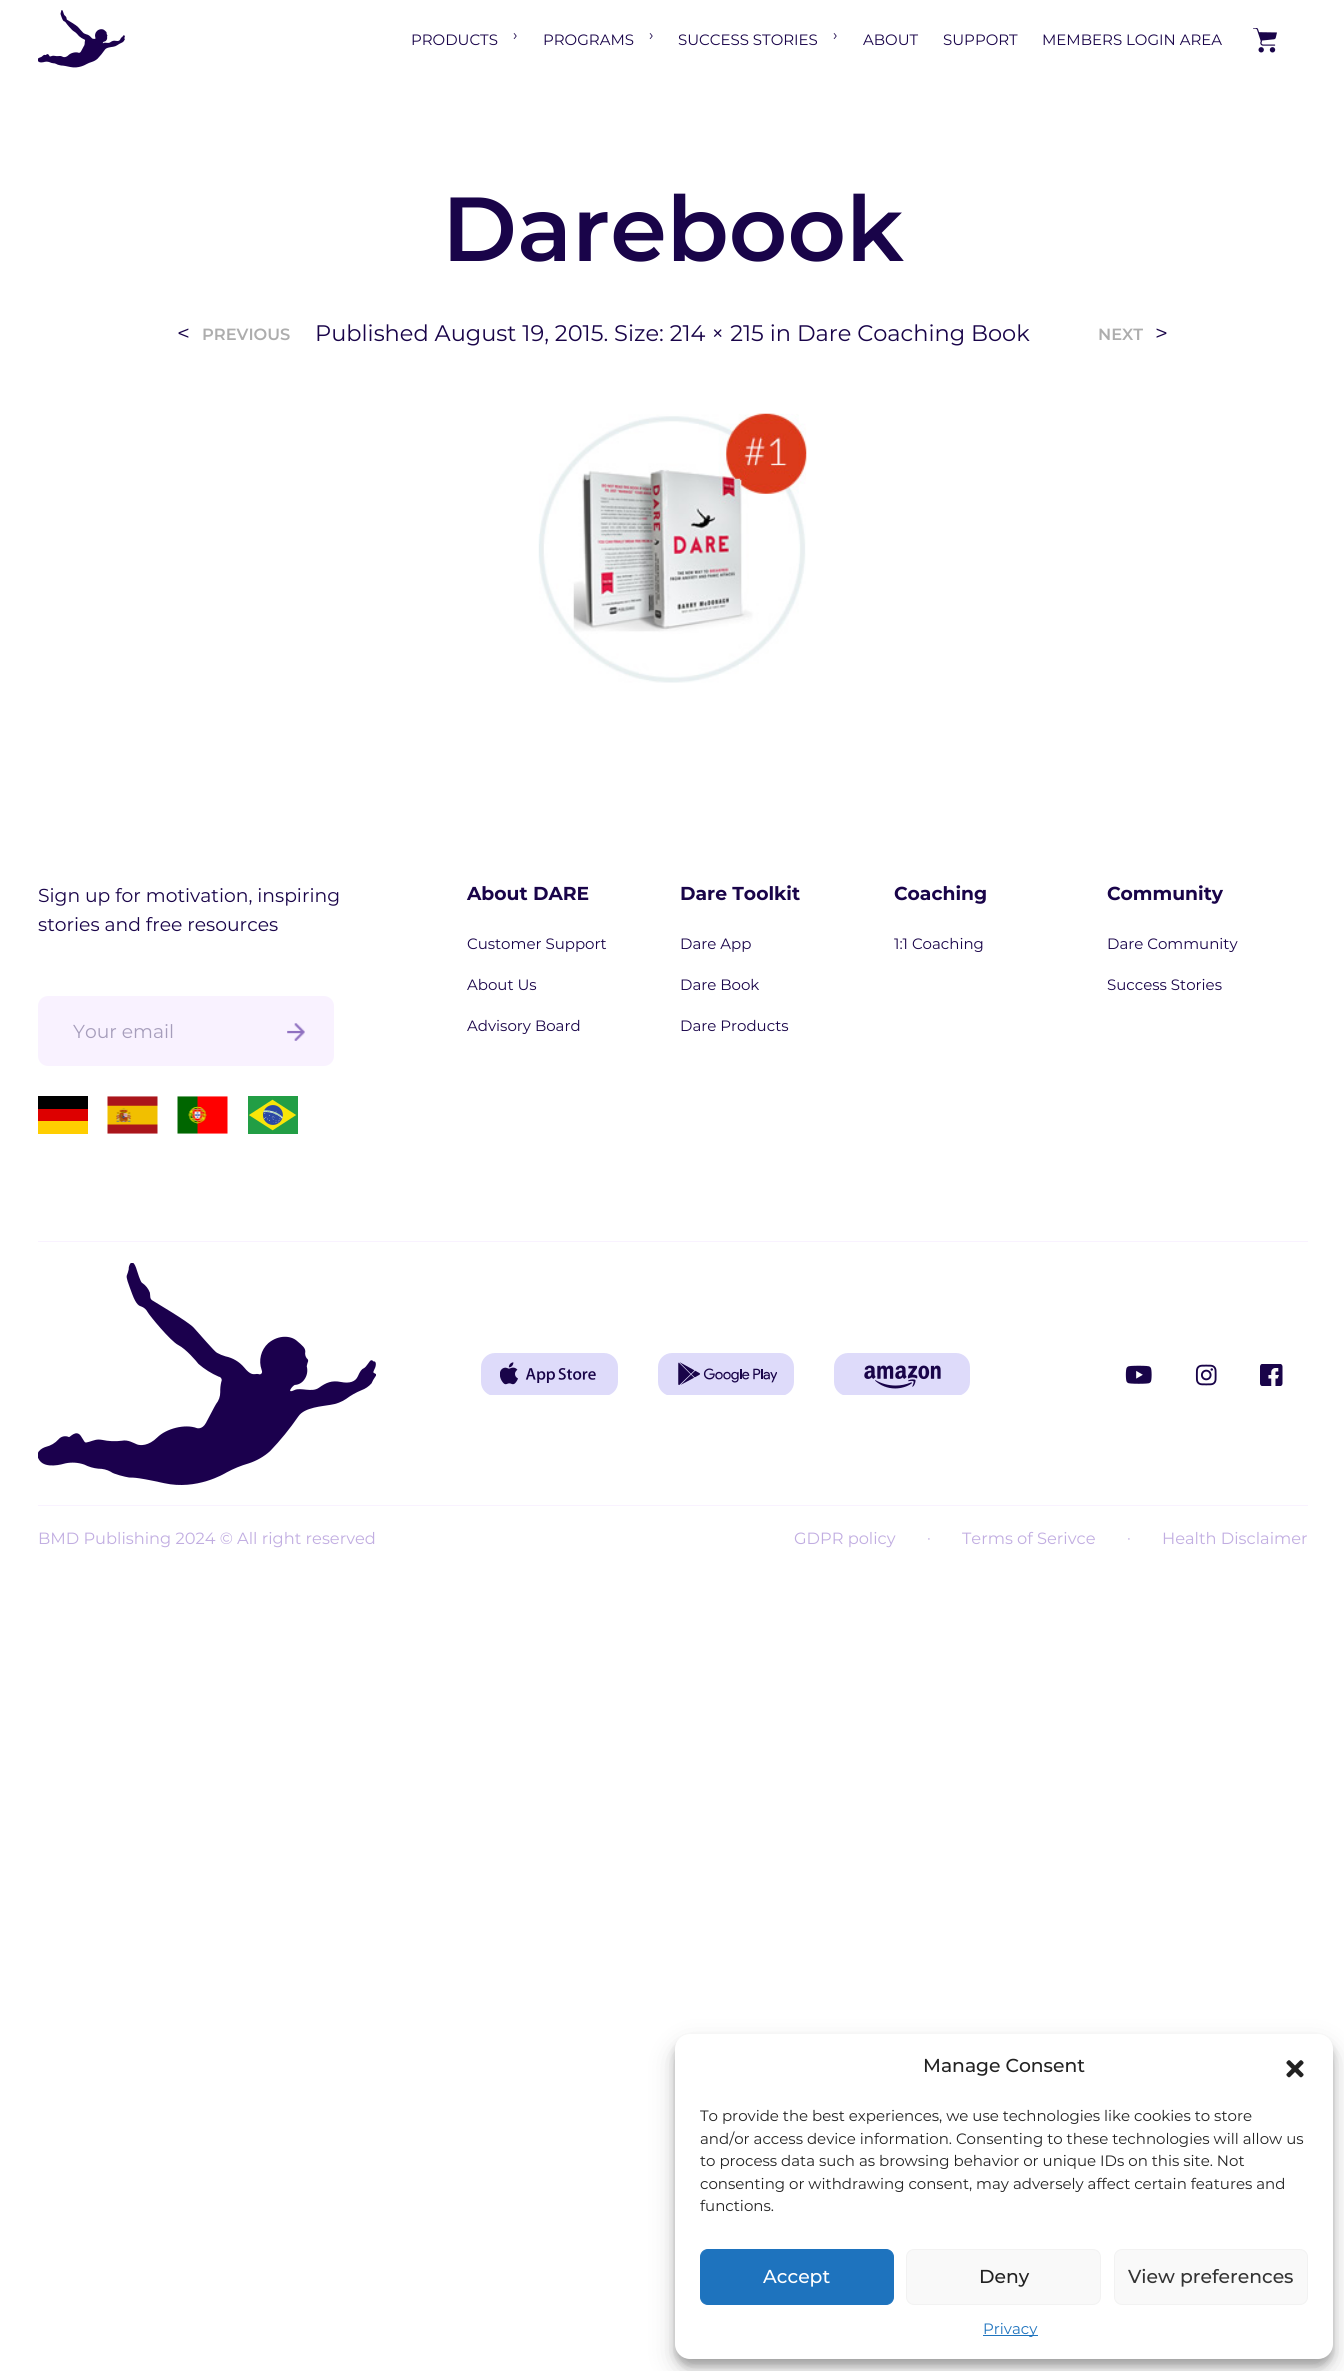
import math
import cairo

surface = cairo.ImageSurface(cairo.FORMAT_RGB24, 1344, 2371)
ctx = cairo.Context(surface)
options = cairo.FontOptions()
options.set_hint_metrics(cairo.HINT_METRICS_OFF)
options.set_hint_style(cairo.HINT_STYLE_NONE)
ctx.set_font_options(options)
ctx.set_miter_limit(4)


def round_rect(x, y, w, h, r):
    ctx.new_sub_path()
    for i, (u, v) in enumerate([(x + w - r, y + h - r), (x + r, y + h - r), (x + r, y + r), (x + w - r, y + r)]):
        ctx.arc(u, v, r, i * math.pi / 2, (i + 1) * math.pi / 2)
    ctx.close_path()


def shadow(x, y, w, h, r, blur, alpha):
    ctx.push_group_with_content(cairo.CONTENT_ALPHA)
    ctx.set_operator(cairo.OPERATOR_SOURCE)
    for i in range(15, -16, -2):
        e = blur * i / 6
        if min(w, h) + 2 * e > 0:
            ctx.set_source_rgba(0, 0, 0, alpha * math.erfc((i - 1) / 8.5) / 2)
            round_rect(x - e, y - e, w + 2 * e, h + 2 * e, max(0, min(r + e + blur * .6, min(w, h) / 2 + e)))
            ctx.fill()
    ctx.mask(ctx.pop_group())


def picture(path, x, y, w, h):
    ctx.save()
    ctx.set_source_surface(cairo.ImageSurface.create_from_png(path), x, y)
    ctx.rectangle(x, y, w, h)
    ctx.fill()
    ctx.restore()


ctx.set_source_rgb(1, 1, 1)
ctx.paint()
picture("img1.png", 38, 10, 87, 58)
ctx.select_font_face("Montserrat")
ctx.set_font_size(15)
ctx.set_source_rgb(0.098, 0.016, 0.286)
ctx.move_to(411, 45)
ctx.show_text("PRODUCTS")
ctx.move_to(513, 40)
ctx.show_text("›")
ctx.move_to(543, 45)
ctx.show_text("PROGRAMS")
ctx.move_to(649, 40)
ctx.show_text("›")
ctx.move_to(678, 45)
ctx.show_text("SUCCESS STORIES")
ctx.move_to(833, 40)
ctx.show_text("›")
ctx.move_to(863, 45)
ctx.show_text("ABOUT")
ctx.move_to(943, 45)
ctx.show_text("SUPPORT")
ctx.move_to(1042, 45)
ctx.show_text("MEMBERS LOGIN AREA")
picture("img2.png", 1253, 28, 24, 25)
ctx.select_font_face("Montserrat SemiBold")
ctx.set_font_size(90.75)
ctx.move_to(442, 261)
ctx.show_text("Darebook")
ctx.select_font_face("Montserrat")
ctx.set_font_size(22.5)
ctx.move_to(315, 341)
ctx.show_text("Published August 19, 2015. Size: 214 × 215 in Dare Coaching Book")
ctx.move_to(177, 341)
ctx.show_text("<")
ctx.select_font_face("Montserrat SemiBold")
ctx.set_font_size(16.25)
ctx.set_source_rgb(0.678, 0.678, 0.678)
ctx.move_to(202, 340)
ctx.show_text("PREVIOUS")
ctx.move_to(1098, 340)
ctx.show_text("NEXT")
ctx.select_font_face("Montserrat")
ctx.set_font_size(22.5)
ctx.set_source_rgb(0.098, 0.016, 0.286)
ctx.move_to(1155, 341)
ctx.show_text(">")
picture("img3.png", 538, 413, 269, 270)
ctx.set_source_rgb(0.973, 0.949, 1)
ctx.rectangle(38, 1241, 1270, 1)
ctx.fill()
ctx.set_font_size(18.75)
ctx.set_source_rgb(0.098, 0.016, 0.286)
ctx.move_to(38, 902)
ctx.show_text("Sign up for motivation, inspiring")
ctx.move_to(38, 931)
ctx.show_text("stories and free resources")
ctx.set_source_rgb(0.973, 0.949, 1)
round_rect(38, 996, 296, 70, 10)
ctx.fill()
ctx.set_source_rgb(0.651, 0.616, 0.733)
ctx.move_to(73, 1038)
ctx.show_text("Your email")
picture("img4.png", 287, 1023, 18, 18)
ctx.set_source_rgb(1, 0.808, 0)
ctx.rectangle(38, 1121, 50, 13)
ctx.fill()
ctx.set_source_rgb(0, 0, 0)
ctx.rectangle(38, 1096, 50, 13)
ctx.fill()
ctx.set_source_rgb(0.867, 0, 0)
ctx.rectangle(38, 1109, 50, 12)
ctx.fill()
picture("img5.png", 107, 1096, 51, 38)
picture("img6.png", 177, 1096, 51, 38)
picture("img7.png", 248, 1096, 50, 38)
ctx.select_font_face("Montserrat", cairo.FONT_SLANT_NORMAL, cairo.FONT_WEIGHT_BOLD)
ctx.set_source_rgb(0.098, 0.016, 0.286)
ctx.move_to(467, 900)
ctx.show_text("About DARE")
ctx.select_font_face("Montserrat")
ctx.set_font_size(15)
ctx.move_to(467, 949)
ctx.show_text("Customer Support")
ctx.move_to(467, 990)
ctx.show_text("About Us")
ctx.move_to(467, 1031)
ctx.show_text("Advisory Board")
ctx.select_font_face("Montserrat", cairo.FONT_SLANT_NORMAL, cairo.FONT_WEIGHT_BOLD)
ctx.set_font_size(18.75)
ctx.move_to(680, 900)
ctx.show_text("Dare Toolkit")
ctx.select_font_face("Montserrat")
ctx.set_font_size(15)
ctx.move_to(680, 949)
ctx.show_text("Dare App")
ctx.move_to(680, 990)
ctx.show_text("Dare Book")
ctx.move_to(680, 1031)
ctx.show_text("Dare Products")
ctx.select_font_face("Montserrat", cairo.FONT_SLANT_NORMAL, cairo.FONT_WEIGHT_BOLD)
ctx.set_font_size(18.75)
ctx.move_to(894, 900)
ctx.show_text("Coaching")
ctx.select_font_face("Montserrat")
ctx.set_font_size(15)
ctx.move_to(894, 949)
ctx.show_text("1:1 Coaching")
ctx.select_font_face("Montserrat", cairo.FONT_SLANT_NORMAL, cairo.FONT_WEIGHT_BOLD)
ctx.set_font_size(18.75)
ctx.move_to(1107, 900)
ctx.show_text("Community")
ctx.select_font_face("Montserrat")
ctx.set_font_size(15)
ctx.move_to(1107, 949)
ctx.show_text("Dare Community")
ctx.move_to(1107, 990)
ctx.show_text("Success Stories")
ctx.set_source_rgb(0.973, 0.949, 1)
ctx.rectangle(38, 1505, 1270, 1)
ctx.fill()
picture("img8.png", 38, 1263, 338, 222)
picture("img9.png", 481, 1353, 137, 42)
picture("img10.png", 658, 1353, 136, 42)
picture("img11.png", 834, 1353, 136, 42)
picture("img12.png", 1125, 1365, 27, 19)
picture("img13.png", 1195, 1364, 22, 22)
picture("img14.png", 1260, 1364, 23, 22)
ctx.set_font_size(16.25)
ctx.set_source_rgb(0.757, 0.678, 0.882)
ctx.move_to(38, 1544)
ctx.show_text("BMD Publishing 2024 © All right reserved")
ctx.move_to(794, 1544)
ctx.show_text("GDPR policy")
ctx.set_font_size(15)
ctx.move_to(927, 1543)
ctx.show_text("·")
ctx.set_font_size(16.25)
ctx.move_to(962, 1544)
ctx.show_text("Terms of Serivce")
ctx.set_font_size(15)
ctx.move_to(1127, 1543)
ctx.show_text("·")
ctx.set_font_size(16.25)
ctx.move_to(1162, 1544)
ctx.show_text("Health Disclaimer")
ctx.set_source_rgb(0, 0, 0)
shadow(675, 2041, 658, 325, 15, 4, 0.23)
shadow(675, 2046, 658, 325, 15, 12.5, 0.19)
ctx.set_source_rgb(1, 1, 1)
round_rect(675, 2034, 658, 325, 15)
ctx.fill()
ctx.select_font_face("Montserrat Medium")
ctx.set_font_size(18.75)
ctx.set_source_rgb(0.133, 0.133, 0.133)
ctx.move_to(923, 2072)
ctx.show_text("Manage Consent")
picture("img15.png", 1286, 2060, 18, 18)
ctx.select_font_face("Montserrat")
ctx.set_font_size(15)
ctx.move_to(700, 2121)
ctx.show_text("To provide the best experiences, we use technologies like cookies to store")
ctx.move_to(700, 2144)
ctx.show_text("and/or access device information. Consenting to these technologies will allow us")
ctx.move_to(700, 2166)
ctx.show_text("to process data such as browsing behavior or unique IDs on this site. Not")
ctx.move_to(700, 2189)
ctx.show_text("consenting or withdrawing consent, may adversely affect certain features and")
ctx.move_to(700, 2211)
ctx.show_text("functions.")
ctx.set_source_rgb(0.118, 0.451, 0.745)
round_rect(700.5, 2249.5, 193, 55, 7.5)
ctx.fill_preserve()
ctx.set_line_width(1)
ctx.stroke()
ctx.select_font_face("Montserrat Medium")
ctx.set_font_size(18.75)
ctx.set_source_rgb(1, 1, 1)
ctx.move_to(763, 2283)
ctx.show_text("Accept")
ctx.set_source_rgb(0.976, 0.976, 0.976)
round_rect(906.5, 2249.5, 194, 55, 7.5)
ctx.fill_preserve()
ctx.set_source_rgb(0.949, 0.949, 0.949)
ctx.stroke()
ctx.set_source_rgb(0.133, 0.133, 0.133)
ctx.move_to(979, 2283)
ctx.show_text("Deny")
ctx.set_source_rgb(0.976, 0.976, 0.976)
round_rect(1114.5, 2249.5, 193, 55, 7.5)
ctx.fill_preserve()
ctx.set_source_rgb(0.949, 0.949, 0.949)
ctx.stroke()
ctx.set_source_rgb(0.2, 0.2, 0.2)
ctx.move_to(1128, 2283)
ctx.show_text("View preferences")
ctx.set_source_rgb(0.118, 0.451, 0.745)
ctx.rectangle(983, 2335, 55, 1)
ctx.fill()
ctx.select_font_face("Montserrat")
ctx.set_font_size(15)
ctx.move_to(983, 2334)
ctx.show_text("Privacy")
surface.write_to_png("page.png")
